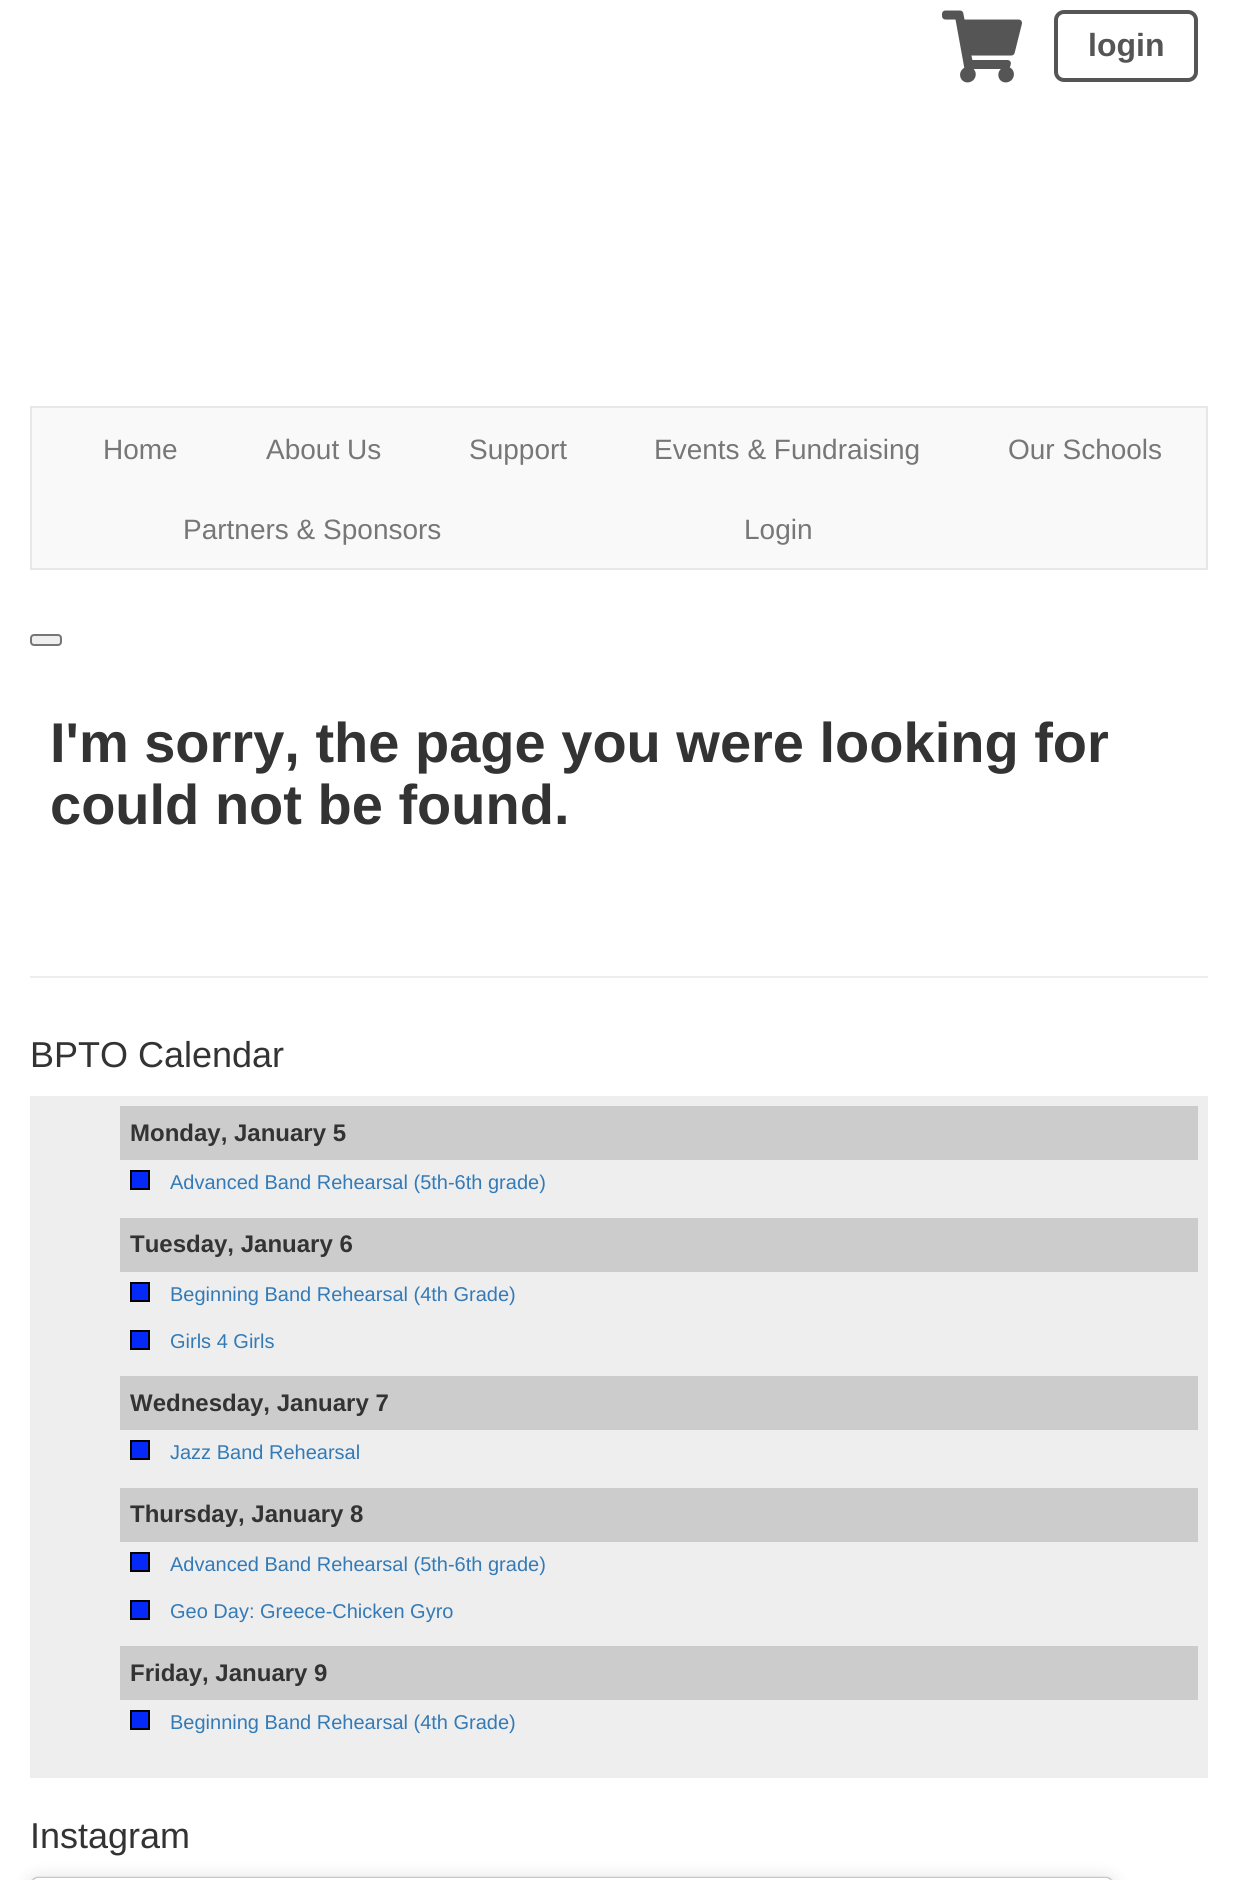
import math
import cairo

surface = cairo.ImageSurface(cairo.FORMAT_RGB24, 1237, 1880)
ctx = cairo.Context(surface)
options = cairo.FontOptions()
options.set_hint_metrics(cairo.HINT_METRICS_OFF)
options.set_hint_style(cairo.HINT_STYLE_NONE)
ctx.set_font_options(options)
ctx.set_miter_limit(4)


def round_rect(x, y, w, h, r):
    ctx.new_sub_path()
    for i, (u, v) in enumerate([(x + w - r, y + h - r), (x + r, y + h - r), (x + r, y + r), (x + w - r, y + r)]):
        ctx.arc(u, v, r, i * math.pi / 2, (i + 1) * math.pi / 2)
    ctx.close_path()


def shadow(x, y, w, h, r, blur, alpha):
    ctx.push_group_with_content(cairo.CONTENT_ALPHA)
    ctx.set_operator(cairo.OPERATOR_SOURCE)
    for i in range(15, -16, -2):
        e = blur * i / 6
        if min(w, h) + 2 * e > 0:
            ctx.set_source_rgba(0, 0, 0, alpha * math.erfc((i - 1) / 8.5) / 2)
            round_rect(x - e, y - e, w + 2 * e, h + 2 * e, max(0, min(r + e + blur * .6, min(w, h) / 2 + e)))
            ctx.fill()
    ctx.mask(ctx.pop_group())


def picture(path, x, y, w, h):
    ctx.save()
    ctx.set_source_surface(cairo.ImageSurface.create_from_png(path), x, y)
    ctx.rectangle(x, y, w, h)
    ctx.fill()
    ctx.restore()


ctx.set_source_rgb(1, 1, 1)
ctx.paint()
picture("img1.png", 942, 10, 80, 73)
round_rect(1056, 12, 140, 68, 8)
ctx.set_source_rgb(0.333, 0.333, 0.333)
ctx.set_line_width(4)
ctx.stroke()
ctx.select_font_face("Liberation Sans", cairo.FONT_SLANT_NORMAL, cairo.FONT_WEIGHT_BOLD)
ctx.set_font_size(32)
ctx.move_to(1088, 56)
ctx.show_text("login")
ctx.set_source_rgb(0.973, 0.973, 0.973)
ctx.rectangle(31, 407, 1176, 162)
ctx.fill_preserve()
ctx.set_source_rgb(0.906, 0.906, 0.906)
ctx.set_line_width(2)
ctx.stroke()
ctx.select_font_face("Liberation Sans")
ctx.set_font_size(28)
ctx.set_source_rgb(0.467, 0.467, 0.467)
ctx.move_to(103, 459)
ctx.show_text("Home")
ctx.move_to(266, 459)
ctx.show_text("About Us")
ctx.move_to(469, 459)
ctx.show_text("Support")
ctx.move_to(654, 459)
ctx.show_text("Events & Fundraising")
ctx.move_to(1008, 459)
ctx.show_text("Our Schools")
ctx.move_to(183, 539)
ctx.show_text("Partners & Sponsors")
ctx.move_to(744, 539)
ctx.show_text("Login")
ctx.set_source_rgb(0.937, 0.937, 0.937)
round_rect(31, 635, 30, 10, 3)
ctx.fill_preserve()
ctx.set_source_rgb(0.463, 0.463, 0.463)
ctx.stroke()
ctx.select_font_face("Liberation Sans", cairo.FONT_SLANT_NORMAL, cairo.FONT_WEIGHT_BOLD)
ctx.set_font_size(56)
ctx.set_source_rgb(0.2, 0.2, 0.2)
ctx.move_to(50, 762)
ctx.show_text("I'm sorry, the page you were looking for")
ctx.move_to(50, 824)
ctx.show_text("could not be found.")
ctx.set_source_rgb(0.933, 0.933, 0.933)
ctx.rectangle(30, 976, 1178, 2)
ctx.fill()
ctx.select_font_face("Liberation Sans")
ctx.set_font_size(36)
ctx.set_source_rgb(0.2, 0.2, 0.2)
ctx.move_to(30, 1067)
ctx.show_text("BPTO Calendar")
ctx.set_source_rgb(0.933, 0.933, 0.933)
ctx.rectangle(30, 1096, 1178, 682)
ctx.fill()
ctx.set_source_rgb(0.8, 0.8, 0.8)
ctx.rectangle(120, 1106, 1078, 54)
ctx.fill()
ctx.select_font_face("Liberation Sans", cairo.FONT_SLANT_NORMAL, cairo.FONT_WEIGHT_BOLD)
ctx.set_font_size(24)
ctx.set_source_rgb(0.2, 0.2, 0.2)
ctx.move_to(130, 1141)
ctx.show_text("Monday, January 5")
ctx.set_source_rgb(0.02, 0.161, 0.961)
ctx.rectangle(131, 1171, 18, 18)
ctx.fill_preserve()
ctx.set_source_rgb(0, 0, 0)
ctx.stroke()
ctx.select_font_face("Liberation Sans")
ctx.set_font_size(20)
ctx.set_source_rgb(0.2, 0.478, 0.718)
ctx.move_to(170, 1189)
ctx.show_text("Advanced Band Rehearsal (5th-6th grade)")
ctx.set_source_rgb(0.8, 0.8, 0.8)
ctx.rectangle(120, 1218, 1078, 54)
ctx.fill()
ctx.select_font_face("Liberation Sans", cairo.FONT_SLANT_NORMAL, cairo.FONT_WEIGHT_BOLD)
ctx.set_font_size(24)
ctx.set_source_rgb(0.2, 0.2, 0.2)
ctx.move_to(130, 1252)
ctx.show_text("Tuesday, January 6")
ctx.set_source_rgb(0.02, 0.161, 0.961)
ctx.rectangle(131, 1283, 18, 18)
ctx.fill_preserve()
ctx.set_source_rgb(0, 0, 0)
ctx.stroke()
ctx.select_font_face("Liberation Sans")
ctx.set_font_size(20)
ctx.set_source_rgb(0.2, 0.478, 0.718)
ctx.move_to(170, 1301)
ctx.show_text("Beginning Band Rehearsal (4th Grade)")
ctx.set_source_rgb(0.02, 0.161, 0.961)
ctx.rectangle(131, 1331, 18, 18)
ctx.fill_preserve()
ctx.set_source_rgb(0, 0, 0)
ctx.stroke()
ctx.set_source_rgb(0.2, 0.478, 0.718)
ctx.move_to(170, 1348)
ctx.show_text("Girls 4 Girls")
ctx.set_source_rgb(0.8, 0.8, 0.8)
ctx.rectangle(120, 1376, 1078, 54)
ctx.fill()
ctx.select_font_face("Liberation Sans", cairo.FONT_SLANT_NORMAL, cairo.FONT_WEIGHT_BOLD)
ctx.set_font_size(24)
ctx.set_source_rgb(0.2, 0.2, 0.2)
ctx.move_to(130, 1411)
ctx.show_text("Wednesday, January 7")
ctx.set_source_rgb(0.02, 0.161, 0.961)
ctx.rectangle(131, 1441, 18, 18)
ctx.fill_preserve()
ctx.set_source_rgb(0, 0, 0)
ctx.stroke()
ctx.select_font_face("Liberation Sans")
ctx.set_font_size(20)
ctx.set_source_rgb(0.2, 0.478, 0.718)
ctx.move_to(170, 1459)
ctx.show_text("Jazz Band Rehearsal")
ctx.set_source_rgb(0.8, 0.8, 0.8)
ctx.rectangle(120, 1488, 1078, 54)
ctx.fill()
ctx.select_font_face("Liberation Sans", cairo.FONT_SLANT_NORMAL, cairo.FONT_WEIGHT_BOLD)
ctx.set_font_size(24)
ctx.set_source_rgb(0.2, 0.2, 0.2)
ctx.move_to(130, 1522)
ctx.show_text("Thursday, January 8")
ctx.set_source_rgb(0.02, 0.161, 0.961)
ctx.rectangle(131, 1553, 18, 18)
ctx.fill_preserve()
ctx.set_source_rgb(0, 0, 0)
ctx.stroke()
ctx.select_font_face("Liberation Sans")
ctx.set_font_size(20)
ctx.set_source_rgb(0.2, 0.478, 0.718)
ctx.move_to(170, 1571)
ctx.show_text("Advanced Band Rehearsal (5th-6th grade)")
ctx.set_source_rgb(0.02, 0.161, 0.961)
ctx.rectangle(131, 1601, 18, 18)
ctx.fill_preserve()
ctx.set_source_rgb(0, 0, 0)
ctx.stroke()
ctx.set_source_rgb(0.2, 0.478, 0.718)
ctx.move_to(170, 1618)
ctx.show_text("Geo Day: Greece-Chicken Gyro")
ctx.set_source_rgb(0.8, 0.8, 0.8)
ctx.rectangle(120, 1646, 1078, 54)
ctx.fill()
ctx.select_font_face("Liberation Sans", cairo.FONT_SLANT_NORMAL, cairo.FONT_WEIGHT_BOLD)
ctx.set_font_size(24)
ctx.set_source_rgb(0.2, 0.2, 0.2)
ctx.move_to(130, 1681)
ctx.show_text("Friday, January 9")
ctx.set_source_rgb(0.02, 0.161, 0.961)
ctx.rectangle(131, 1711, 18, 18)
ctx.fill_preserve()
ctx.set_source_rgb(0, 0, 0)
ctx.stroke()
ctx.select_font_face("Liberation Sans")
ctx.set_font_size(20)
ctx.set_source_rgb(0.2, 0.478, 0.718)
ctx.move_to(170, 1729)
ctx.show_text("Beginning Band Rehearsal (4th Grade)")
ctx.set_source_rgb(0, 0, 0)
shadow(32, 1880, 1080, 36, 6, 10, 0.15)
ctx.set_font_size(36)
ctx.set_source_rgb(0.2, 0.2, 0.2)
ctx.move_to(30, 1848)
ctx.show_text("Instagram")
ctx.set_source_rgb(0, 0, 0)
shadow(32, 1878, 1080, 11, 6, 1, 0.5)
ctx.set_source_rgb(1, 1, 1)
round_rect(32, 1878, 1080, 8, 6)
ctx.fill()
surface.write_to_png("page.png")
